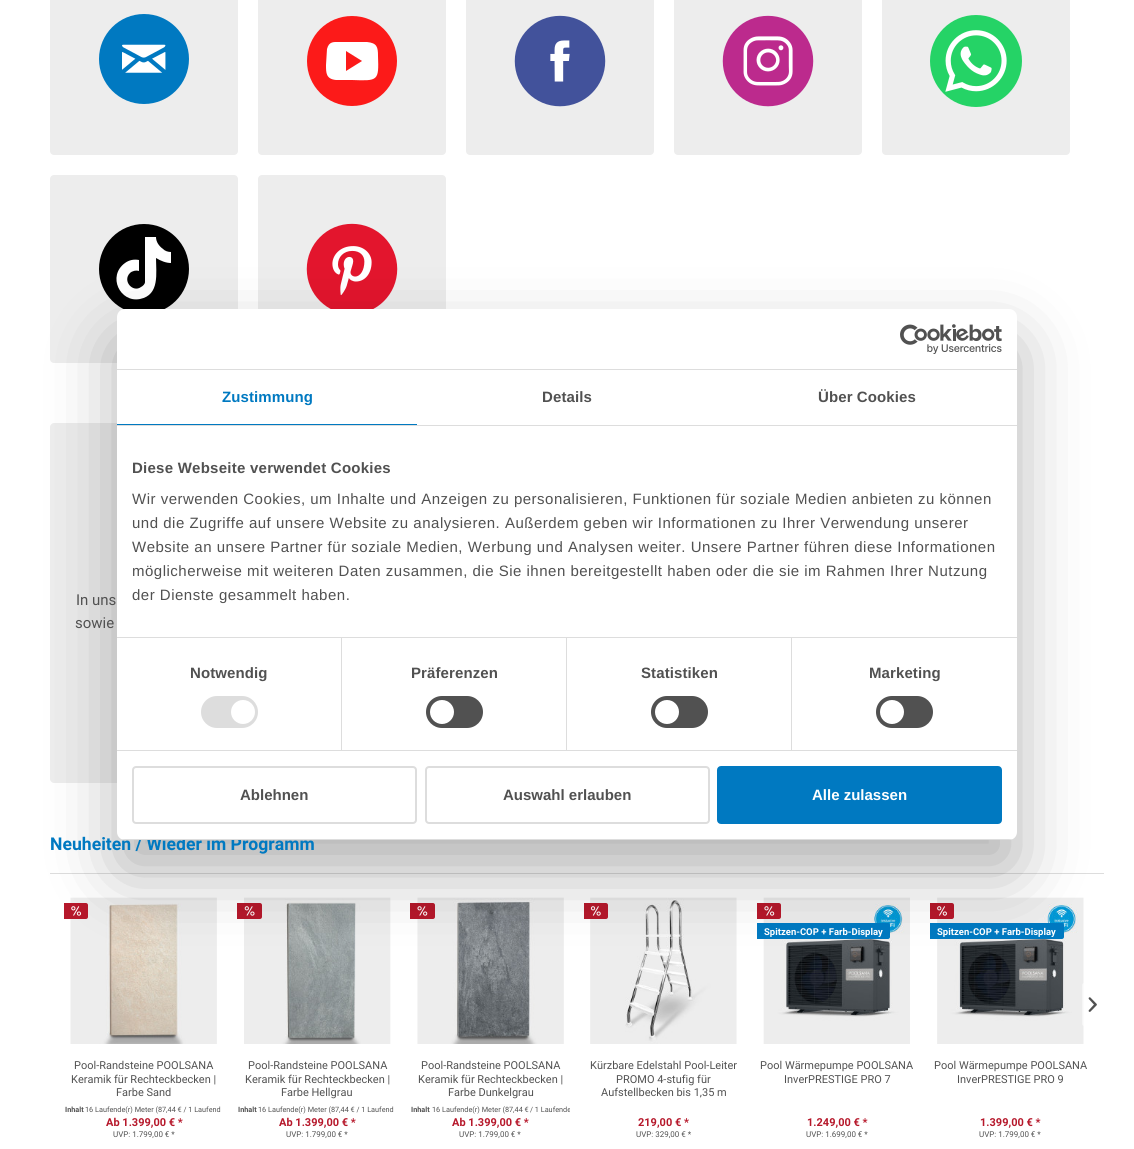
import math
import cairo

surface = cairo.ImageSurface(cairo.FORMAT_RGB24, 1134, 1149)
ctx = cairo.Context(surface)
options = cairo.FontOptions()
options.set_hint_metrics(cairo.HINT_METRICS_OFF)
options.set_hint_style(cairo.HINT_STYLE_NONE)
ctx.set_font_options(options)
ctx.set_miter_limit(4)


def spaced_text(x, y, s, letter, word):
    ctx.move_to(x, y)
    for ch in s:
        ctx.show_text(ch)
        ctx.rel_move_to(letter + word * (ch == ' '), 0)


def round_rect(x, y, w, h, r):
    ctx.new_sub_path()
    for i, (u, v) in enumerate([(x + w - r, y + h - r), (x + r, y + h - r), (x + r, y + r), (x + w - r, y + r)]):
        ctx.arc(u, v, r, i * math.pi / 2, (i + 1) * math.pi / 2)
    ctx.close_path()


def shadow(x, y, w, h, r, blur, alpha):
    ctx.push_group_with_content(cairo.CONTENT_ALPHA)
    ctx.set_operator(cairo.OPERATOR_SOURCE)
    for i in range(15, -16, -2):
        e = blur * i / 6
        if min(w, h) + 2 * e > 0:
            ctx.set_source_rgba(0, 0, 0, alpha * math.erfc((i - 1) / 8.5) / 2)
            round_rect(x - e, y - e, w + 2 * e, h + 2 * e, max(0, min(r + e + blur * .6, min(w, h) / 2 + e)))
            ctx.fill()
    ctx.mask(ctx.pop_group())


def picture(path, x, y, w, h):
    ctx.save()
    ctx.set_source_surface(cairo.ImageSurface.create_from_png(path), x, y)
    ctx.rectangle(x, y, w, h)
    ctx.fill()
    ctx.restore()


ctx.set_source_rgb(1, 1, 1)
ctx.paint()
ctx.set_source_rgb(0.929, 0.929, 0.929)
round_rect(50, 175, 188, 188, 4)
ctx.fill()
ctx.set_source_rgb(0, 0, 0)
ctx.arc(144, 269, 45, 0, 2 * math.pi)
ctx.fill()
ctx.set_source_rgb(1, 1, 1)
ctx.new_path()
ctx.move_to(163, 249)
ctx.curve_to(159, 246, 156, 242, 156, 237)
ctx.line_to(145, 237)
ctx.line_to(145, 282)
ctx.curve_to(145, 284, 143, 286, 141, 287)
ctx.curve_to(133, 293, 122, 281, 130, 273)
ctx.curve_to(132, 271, 136, 270, 139, 271)
ctx.line_to(139, 260)
ctx.curve_to(134, 259, 129, 260, 125, 263)
ctx.curve_to(107, 276, 120, 303, 140, 299)
ctx.curve_to(160, 295, 156, 273, 156, 258)
ctx.curve_to(161, 261, 166, 263, 171, 263)
ctx.line_to(171, 252)
ctx.curve_to(168, 252, 165, 251, 163, 249)
ctx.close_path()
ctx.fill()
ctx.set_source_rgb(0.929, 0.929, 0.929)
round_rect(258, 175, 188, 188, 4)
ctx.fill()
picture("img6.png", 306, 223, 92, 86)
ctx.new_path()
ctx.move_to(54, 423)
ctx.line_to(577, 423)
ctx.line_to(577, 783)
ctx.line_to(54, 783)
ctx.curve_to(52, 783, 50, 781, 50, 779)
ctx.line_to(50, 427)
ctx.curve_to(50, 425, 52, 423, 54, 423)
ctx.close_path()
ctx.fill()
ctx.set_source_rgb(0.867, 0.867, 0.867)
ctx.rectangle(50, 873, 1054, 1)
ctx.fill()
picture("img7.png", 70, 897, 147, 147)
ctx.set_source_rgb(0.714, 0.094, 0.169)
ctx.new_path()
ctx.move_to(64, 903)
ctx.line_to(86, 903)
ctx.curve_to(87, 903, 88, 904, 88, 905)
ctx.line_to(88, 917)
ctx.curve_to(88, 918, 87, 919, 86, 919)
ctx.line_to(64, 919)
ctx.close_path()
ctx.fill()
picture("img8.png", 71, 906, 11, 10)
picture("img9.png", 244, 897, 147, 147)
ctx.new_path()
ctx.move_to(237, 903)
ctx.line_to(260, 903)
ctx.curve_to(261, 903, 262, 904, 262, 905)
ctx.line_to(262, 917)
ctx.curve_to(262, 918, 261, 919, 260, 919)
ctx.line_to(237, 919)
ctx.close_path()
ctx.fill()
picture("img10.png", 244, 906, 11, 10)
picture("img11.png", 417, 897, 147, 147)
ctx.new_path()
ctx.move_to(410, 903)
ctx.line_to(433, 903)
ctx.curve_to(434, 903, 435, 904, 435, 905)
ctx.line_to(435, 917)
ctx.curve_to(435, 918, 434, 919, 433, 919)
ctx.line_to(410, 919)
ctx.close_path()
ctx.fill()
picture("img12.png", 417, 906, 11, 10)
picture("img13.png", 590, 897, 147, 147)
ctx.new_path()
ctx.move_to(584, 903)
ctx.line_to(606, 903)
ctx.curve_to(607, 903, 608, 904, 608, 905)
ctx.line_to(608, 917)
ctx.curve_to(608, 918, 607, 919, 606, 919)
ctx.line_to(584, 919)
ctx.close_path()
ctx.fill()
picture("img14.png", 590, 906, 11, 10)
picture("img15.png", 763, 897, 147, 147)
ctx.new_path()
ctx.move_to(757, 903)
ctx.line_to(779, 903)
ctx.curve_to(780, 903, 781, 904, 781, 905)
ctx.line_to(781, 917)
ctx.curve_to(781, 918, 780, 919, 779, 919)
ctx.line_to(757, 919)
ctx.close_path()
ctx.fill()
picture("img16.png", 764, 906, 11, 10)
ctx.set_source_rgb(0, 0.475, 0.757)
ctx.new_path()
ctx.move_to(757, 923)
ctx.line_to(888, 923)
ctx.curve_to(889, 923, 890, 924, 890, 925)
ctx.line_to(890, 937)
ctx.curve_to(890, 938, 889, 939, 888, 939)
ctx.line_to(757, 939)
ctx.close_path()
ctx.fill()
picture("img17.png", 937, 897, 147, 147)
ctx.set_source_rgb(0.714, 0.094, 0.169)
ctx.new_path()
ctx.move_to(930, 903)
ctx.line_to(952, 903)
ctx.curve_to(953, 903, 954, 904, 954, 905)
ctx.line_to(954, 917)
ctx.curve_to(954, 918, 953, 919, 952, 919)
ctx.line_to(930, 919)
ctx.close_path()
ctx.fill()
picture("img18.png", 937, 906, 10, 10)
ctx.set_source_rgb(0, 0.475, 0.757)
ctx.new_path()
ctx.move_to(930, 923)
ctx.line_to(1062, 923)
ctx.curve_to(1063, 923, 1064, 924, 1064, 925)
ctx.line_to(1064, 937)
ctx.curve_to(1064, 938, 1063, 939, 1062, 939)
ctx.line_to(930, 939)
ctx.close_path()
ctx.fill()
ctx.set_source_rgb(0, 0, 0)
shadow(117, 341, 900, 531, 8, 34, 0.3)
ctx.select_font_face("Roboto", cairo.FONT_SLANT_NORMAL, cairo.FONT_WEIGHT_BOLD)
ctx.set_font_size(17.6)
ctx.set_source_rgb(0, 0.475, 0.757)
ctx.move_to(50, 850)
ctx.show_text("Neuheiten / Wieder im Programm")
ctx.set_source_rgb(1, 1, 1)
round_rect(117, 309, 900, 531, 8)
ctx.fill()
ctx.set_source_rgb(0.867, 0.867, 0.867)
ctx.rectangle(117, 369, 900, 1)
ctx.fill()
picture("img1.png", 900, 324, 102, 30)
ctx.rectangle(117, 425, 900, 1)
ctx.fill()
ctx.set_source_rgb(0, 0.475, 0.757)
ctx.rectangle(117, 424, 300, 1)
ctx.fill()
ctx.select_font_face("Liberation Sans", cairo.FONT_SLANT_NORMAL, cairo.FONT_WEIGHT_BOLD)
ctx.set_font_size(15)
spaced_text(222, 402, "Zustimmung", 0.1, 0)
ctx.set_source_rgb(0.318, 0.318, 0.318)
spaced_text(542, 402, "Details", 0.1, 0)
spaced_text(818, 402, "Über Cookies", 0.1, 0)
ctx.set_source_rgb(0.867, 0.867, 0.867)
ctx.rectangle(117, 637, 900, 1)
ctx.fill()
ctx.set_source_rgb(0.318, 0.318, 0.318)
spaced_text(132, 473, "Diese Webseite verwendet Cookies", 0.25, 0)
ctx.select_font_face("Liberation Sans")
spaced_text(132, 504, "Wir verwenden Cookies, um Inhalte und Anzeigen zu personalisieren, Funktionen für soziale Medien anbieten zu können", 0.5, 0)
spaced_text(132, 528, "und die Zugriffe auf unsere Website zu analysieren. Außerdem geben wir Informationen zu Ihrer Verwendung unserer", 0.5, 0)
spaced_text(132, 552, "Website an unsere Partner für soziale Medien, Werbung und Analysen weiter. Unsere Partner führen diese Informationen", 0.5, 0)
spaced_text(132, 576, "möglicherweise mit weiteren Daten zusammen, die Sie ihnen bereitgestellt haben oder die sie im Rahmen Ihrer Nutzung", 0.5, 0)
spaced_text(132, 600, "der Dienste gesammelt haben.", 0.5, 0)
ctx.set_source_rgb(0.867, 0.867, 0.867)
ctx.rectangle(117, 750, 900, 1)
ctx.fill()
ctx.rectangle(341, 638, 1, 112)
ctx.fill()
ctx.select_font_face("Liberation Sans", cairo.FONT_SLANT_NORMAL, cairo.FONT_WEIGHT_BOLD)
ctx.set_source_rgb(0.318, 0.318, 0.318)
spaced_text(190, 678, "Notwendig", 0.1, 0)
ctx.set_source_rgb(0.867, 0.867, 0.867)
round_rect(201, 696, 57, 32, 16)
ctx.fill()
ctx.set_source_rgb(1, 1, 1)
ctx.arc(243, 712, 12, 0, 2 * math.pi)
ctx.fill()
ctx.set_source_rgb(0.867, 0.867, 0.867)
ctx.rectangle(566, 638, 1, 112)
ctx.fill()
ctx.set_source_rgb(0.318, 0.318, 0.318)
spaced_text(411, 678, "Präferenzen", 0.1, 0)
round_rect(426, 696, 57, 32, 16)
ctx.fill()
ctx.set_source_rgb(1, 1, 1)
ctx.arc(442, 712, 12, 0, 2 * math.pi)
ctx.fill()
ctx.set_source_rgb(0.867, 0.867, 0.867)
ctx.rectangle(791, 638, 1, 112)
ctx.fill()
ctx.set_source_rgb(0.318, 0.318, 0.318)
spaced_text(641, 678, "Statistiken", 0.1, 0)
round_rect(651, 696, 57, 32, 16)
ctx.fill()
ctx.set_source_rgb(1, 1, 1)
ctx.arc(667, 712, 12, 0, 2 * math.pi)
ctx.fill()
ctx.set_source_rgb(0.318, 0.318, 0.318)
spaced_text(869, 678, "Marketing", 0.1, 0)
round_rect(876, 696, 57, 32, 16)
ctx.fill()
ctx.set_source_rgb(1, 1, 1)
ctx.arc(892, 712, 12, 0, 2 * math.pi)
ctx.fill()
ctx.save()
round_rect(117, 309, 900, 531, 8)
ctx.clip()
ctx.set_source_rgb(0.867, 0.867, 0.867)
ctx.rectangle(117, 839, 900, 1)
ctx.fill()
ctx.restore()
round_rect(133, 767, 283, 56, 3)
ctx.set_source_rgb(0.867, 0.867, 0.867)
ctx.stroke()
ctx.set_source_rgb(0.318, 0.318, 0.318)
ctx.move_to(240, 800)
ctx.show_text("Ablehnen")
round_rect(426, 767, 283, 56, 3)
ctx.set_source_rgb(0.867, 0.867, 0.867)
ctx.stroke()
ctx.set_source_rgb(0.318, 0.318, 0.318)
ctx.move_to(503, 800)
ctx.show_text("Auswahl erlauben")
ctx.set_source_rgb(0, 0.475, 0.757)
round_rect(718, 767, 283, 56, 3)
ctx.fill_preserve()
ctx.stroke()
ctx.set_source_rgb(1, 1, 1)
ctx.move_to(812, 800)
ctx.show_text("Alle zulassen")
ctx.set_source_rgb(0.929, 0.929, 0.929)
round_rect(50, -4, 188, 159, 4)
ctx.fill()
ctx.set_source_rgb(0, 0.475, 0.757)
ctx.arc(144, 59, 45, 0, 2 * math.pi)
ctx.fill()
picture("img2.png", 122, 44, 44, 29)
ctx.set_source_rgb(0.929, 0.929, 0.929)
round_rect(258, -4, 188, 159, 4)
ctx.fill()
ctx.set_source_rgb(0.988, 0.102, 0.098)
ctx.new_path()
ctx.move_to(352, 16)
ctx.curve_to(377, 16, 397, 36, 397, 61)
ctx.curve_to(397, 86, 377, 106, 352, 106)
ctx.curve_to(327, 106, 307, 86, 307, 61)
ctx.curve_to(307, 36, 327, 16, 352, 16)
ctx.close_path()
ctx.fill()
ctx.set_source_rgb(1, 1, 1)
ctx.new_path()
ctx.move_to(352, 42)
ctx.line_to(340, 42)
ctx.curve_to(334, 42, 329, 41, 327, 49)
ctx.line_to(326, 65)
ctx.curve_to(326, 73, 326, 79, 336, 80)
ctx.line_to(352, 80)
ctx.curve_to(378, 81, 379, 81, 378, 56)
ctx.curve_to(378, 47, 377, 43, 367, 42)
ctx.close_path()
ctx.move_to(346, 51)
ctx.line_to(362, 61)
ctx.line_to(346, 71)
ctx.close_path()
ctx.fill()
ctx.set_source_rgb(0.929, 0.929, 0.929)
round_rect(466, -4, 188, 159, 4)
ctx.fill()
picture("img3.png", 514, 15, 92, 92)
round_rect(674, -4, 188, 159, 4)
ctx.fill()
picture("img4.png", 722, 15, 92, 92)
round_rect(882, -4, 188, 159, 4)
ctx.fill()
picture("img5.png", 930, 15, 92, 92)
ctx.select_font_face("Roboto")
ctx.set_source_rgb(0.318, 0.318, 0.318)
ctx.move_to(76, 605)
ctx.show_text("In uns")
ctx.move_to(75, 628)
ctx.show_text("sowie")
ctx.set_font_size(11)
ctx.move_to(74, 1069)
ctx.show_text("Pool-Randsteine POOLSANA")
ctx.move_to(71, 1083)
ctx.show_text("Keramik für Rechteckbecken |")
ctx.move_to(116, 1096)
ctx.show_text("Farbe Sand")
ctx.select_font_face("Roboto", cairo.FONT_SLANT_NORMAL, cairo.FONT_WEIGHT_BOLD)
ctx.set_font_size(7.3)
ctx.move_to(65, 1112)
ctx.show_text("Inhalt")
ctx.select_font_face("Roboto")
ctx.move_to(85, 1112)
ctx.show_text("16 Laufende(r) Meter (87,44 € / 1 Laufend")
ctx.select_font_face("Roboto", cairo.FONT_SLANT_NORMAL, cairo.FONT_WEIGHT_BOLD)
ctx.set_font_size(11)
ctx.set_source_rgb(0.714, 0.094, 0.169)
ctx.move_to(106, 1126)
ctx.show_text("Ab 1.399,00 € *")
ctx.select_font_face("Roboto")
ctx.set_font_size(8)
ctx.set_source_rgb(0.318, 0.318, 0.318)
ctx.move_to(113, 1137)
ctx.show_text("UVP: 1.799,00 € *")
ctx.set_font_size(11)
ctx.move_to(248, 1069)
ctx.show_text("Pool-Randsteine POOLSANA")
ctx.move_to(245, 1083)
ctx.show_text("Keramik für Rechteckbecken |")
ctx.move_to(281, 1096)
ctx.show_text("Farbe Hellgrau")
ctx.select_font_face("Roboto", cairo.FONT_SLANT_NORMAL, cairo.FONT_WEIGHT_BOLD)
ctx.set_font_size(7.3)
ctx.move_to(238, 1112)
ctx.show_text("Inhalt")
ctx.select_font_face("Roboto")
ctx.move_to(258, 1112)
ctx.show_text("16 Laufende(r) Meter (87,44 € / 1 Laufend")
ctx.select_font_face("Roboto", cairo.FONT_SLANT_NORMAL, cairo.FONT_WEIGHT_BOLD)
ctx.set_font_size(11)
ctx.set_source_rgb(0.714, 0.094, 0.169)
ctx.move_to(279, 1126)
ctx.show_text("Ab 1.399,00 € *")
ctx.select_font_face("Roboto")
ctx.set_font_size(8)
ctx.set_source_rgb(0.318, 0.318, 0.318)
ctx.move_to(286, 1137)
ctx.show_text("UVP: 1.799,00 € *")
ctx.set_font_size(11)
ctx.move_to(421, 1069)
ctx.show_text("Pool-Randsteine POOLSANA")
ctx.move_to(418, 1083)
ctx.show_text("Keramik für Rechteckbecken |")
ctx.move_to(448, 1096)
ctx.show_text("Farbe Dunkelgrau")
ctx.select_font_face("Roboto", cairo.FONT_SLANT_NORMAL, cairo.FONT_WEIGHT_BOLD)
ctx.set_font_size(7.3)
ctx.move_to(411, 1112)
ctx.show_text("Inhalt")
ctx.select_font_face("Roboto")
ctx.move_to(432, 1112)
ctx.show_text("16 Laufende(r) Meter (87,44 €")
ctx.save()
ctx.rectangle(411, 1105, 159, 10)
ctx.clip()
ctx.move_to(530, 1112)
ctx.show_text("/ 1 Laufende")
ctx.restore()
ctx.select_font_face("Roboto", cairo.FONT_SLANT_NORMAL, cairo.FONT_WEIGHT_BOLD)
ctx.set_font_size(11)
ctx.set_source_rgb(0.714, 0.094, 0.169)
ctx.move_to(452, 1126)
ctx.show_text("Ab 1.399,00 € *")
ctx.select_font_face("Roboto")
ctx.set_font_size(8)
ctx.set_source_rgb(0.318, 0.318, 0.318)
ctx.move_to(459, 1137)
ctx.show_text("UVP: 1.799,00 € *")
ctx.set_font_size(11)
ctx.move_to(590, 1069)
ctx.show_text("Kürzbare Edelstahl Pool-Leiter")
ctx.move_to(616, 1083)
ctx.show_text("PROMO 4-stufig für")
ctx.move_to(601, 1096)
ctx.show_text("Aufstellbecken bis 1,35 m")
ctx.select_font_face("Roboto", cairo.FONT_SLANT_NORMAL, cairo.FONT_WEIGHT_BOLD)
ctx.set_source_rgb(0.714, 0.094, 0.169)
ctx.move_to(638, 1126)
ctx.show_text("219,00 € *")
ctx.select_font_face("Roboto")
ctx.set_font_size(8)
ctx.set_source_rgb(0.318, 0.318, 0.318)
ctx.move_to(636, 1137)
ctx.show_text("UVP: 329,00 € *")
ctx.select_font_face("Roboto", cairo.FONT_SLANT_NORMAL, cairo.FONT_WEIGHT_BOLD)
ctx.set_font_size(9.5)
ctx.set_source_rgb(1, 1, 1)
ctx.move_to(764, 935)
ctx.show_text("Spitzen-COP + Farb-Display")
ctx.select_font_face("Roboto")
ctx.set_font_size(11)
ctx.set_source_rgb(0.318, 0.318, 0.318)
ctx.move_to(760, 1069)
ctx.show_text("Pool Wärmepumpe POOLSANA")
ctx.move_to(784, 1083)
ctx.show_text("InverPRESTIGE PRO 7")
ctx.select_font_face("Roboto", cairo.FONT_SLANT_NORMAL, cairo.FONT_WEIGHT_BOLD)
ctx.set_source_rgb(0.714, 0.094, 0.169)
ctx.move_to(807, 1126)
ctx.show_text("1.249,00 € *")
ctx.select_font_face("Roboto")
ctx.set_font_size(8)
ctx.set_source_rgb(0.318, 0.318, 0.318)
ctx.move_to(806, 1137)
ctx.show_text("UVP: 1.699,00 € *")
ctx.select_font_face("Roboto", cairo.FONT_SLANT_NORMAL, cairo.FONT_WEIGHT_BOLD)
ctx.set_font_size(9.5)
ctx.set_source_rgb(1, 1, 1)
ctx.move_to(937, 935)
ctx.show_text("Spitzen-COP + Farb-Display")
ctx.select_font_face("Roboto")
ctx.set_font_size(11)
ctx.set_source_rgb(0.318, 0.318, 0.318)
ctx.move_to(934, 1069)
ctx.show_text("Pool Wärmepumpe POOLSANA")
ctx.move_to(957, 1083)
ctx.show_text("InverPRESTIGE PRO 9")
ctx.select_font_face("Roboto", cairo.FONT_SLANT_NORMAL, cairo.FONT_WEIGHT_BOLD)
ctx.set_source_rgb(0.714, 0.094, 0.169)
ctx.move_to(980, 1126)
ctx.show_text("1.399,00 € *")
ctx.select_font_face("Roboto")
ctx.set_font_size(8)
ctx.set_source_rgb(0.318, 0.318, 0.318)
ctx.move_to(979, 1137)
ctx.show_text("UVP: 1.799,00 € *")
ctx.set_source_rgba(1, 1, 1, 0.5)
ctx.new_path()
ctx.move_to(1084, 983)
ctx.line_to(1104, 983)
ctx.line_to(1104, 1026)
ctx.line_to(1084, 1026)
ctx.curve_to(1083, 1026, 1082, 1025, 1082, 1024)
ctx.line_to(1082, 985)
ctx.curve_to(1082, 984, 1083, 983, 1084, 983)
ctx.close_path()
ctx.fill()
picture("img19.png", 1088, 997, 9, 15)
surface.write_to_png("page.png")
